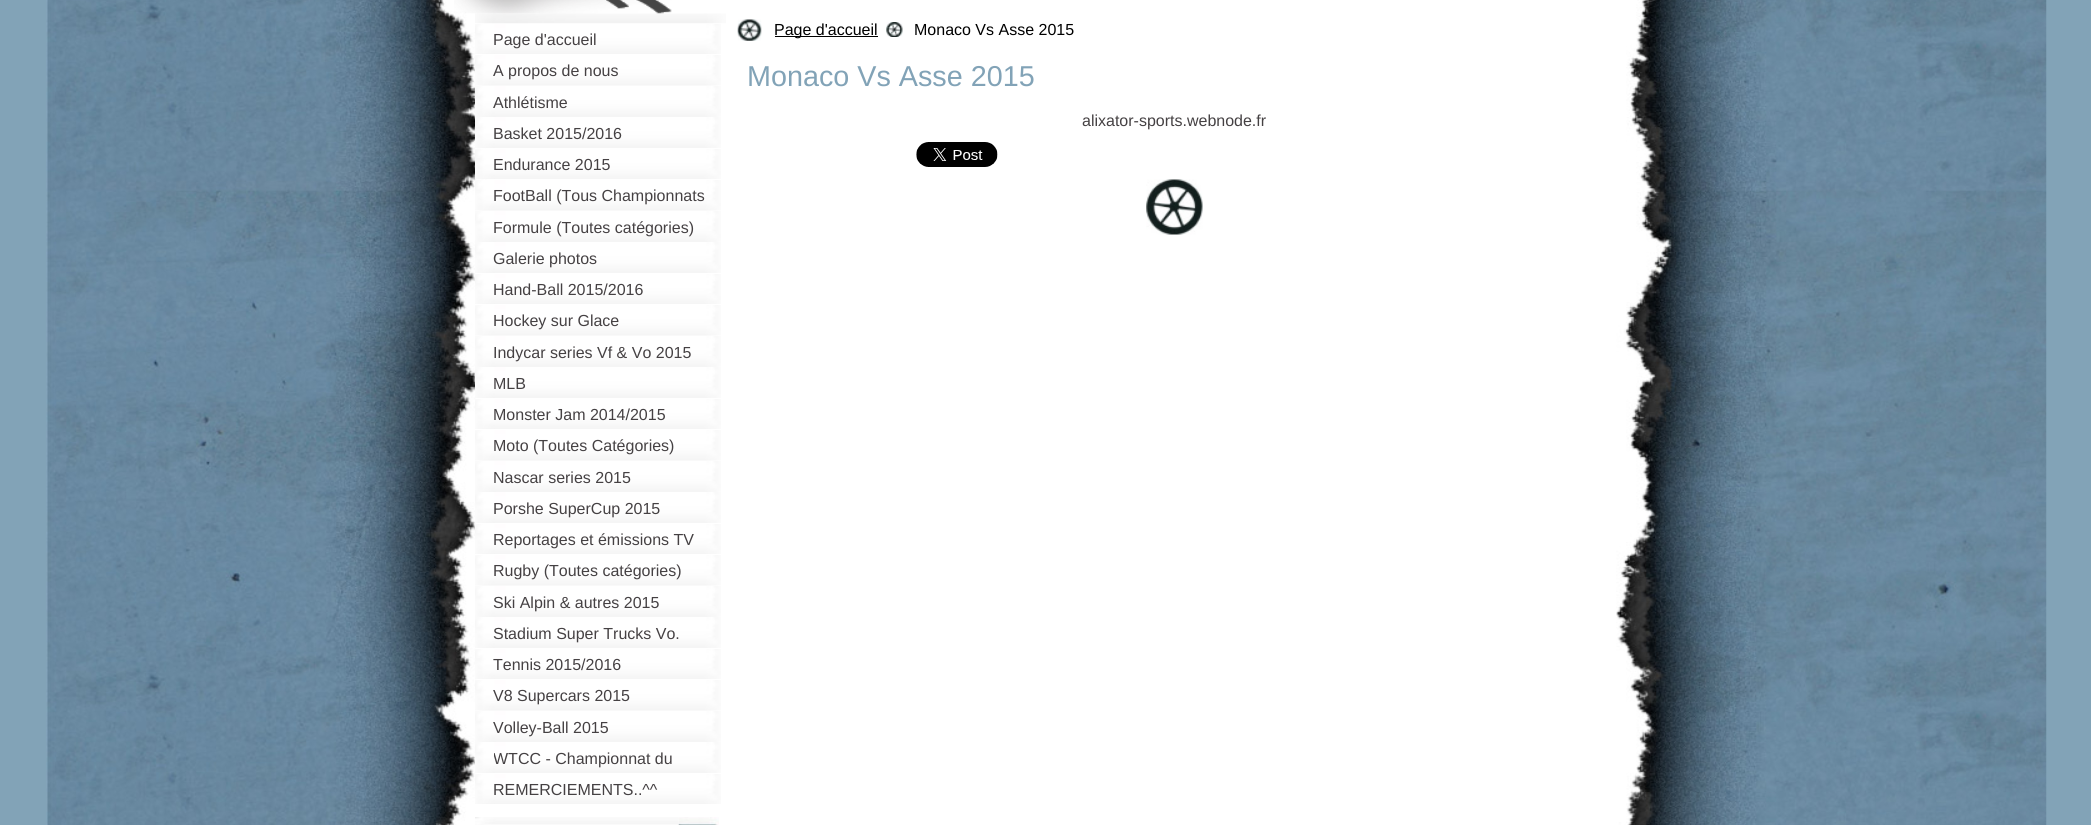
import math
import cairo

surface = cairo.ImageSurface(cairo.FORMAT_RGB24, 2091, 825)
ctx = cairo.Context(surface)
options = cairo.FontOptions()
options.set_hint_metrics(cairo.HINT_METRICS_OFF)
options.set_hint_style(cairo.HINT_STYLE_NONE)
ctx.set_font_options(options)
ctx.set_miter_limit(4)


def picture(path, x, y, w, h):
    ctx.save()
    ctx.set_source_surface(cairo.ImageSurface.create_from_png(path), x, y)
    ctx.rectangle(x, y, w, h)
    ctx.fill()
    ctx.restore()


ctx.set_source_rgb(0.51, 0.639, 0.718)
ctx.paint()
picture("img1.png", 46, 0, 2001, 825)
picture("img3.png", 475, 13, 251, 11)
picture("img2.png", 454, 0, 218, 14)
picture("img4.png", 475, 24, 246, 30)
ctx.select_font_face("Liberation Sans")
ctx.set_font_size(16)
ctx.set_source_rgb(0.271, 0.255, 0.263)
ctx.move_to(493, 45)
ctx.show_text("Page d'accueil")
picture("img5.png", 475, 55, 246, 31)
ctx.move_to(493, 76)
ctx.show_text("A propos de nous")
picture("img6.png", 475, 86, 246, 31)
ctx.move_to(493, 108)
ctx.show_text("Athlétisme")
picture("img7.png", 475, 117, 246, 31)
ctx.move_to(493, 139)
ctx.show_text("Basket 2015/2016")
picture("img4.png", 475, 149, 246, 30)
ctx.move_to(493, 170)
ctx.show_text("Endurance 2015")
picture("img8.png", 475, 180, 246, 31)
ctx.move_to(493, 201)
ctx.show_text("FootBall (Tous Championnats")
picture("img6.png", 475, 211, 246, 31)
ctx.move_to(493, 233)
ctx.show_text("Formule (Toutes catégories)")
picture("img7.png", 475, 242, 246, 31)
ctx.move_to(493, 264)
ctx.show_text("Galerie photos")
picture("img4.png", 475, 274, 246, 30)
ctx.move_to(493, 295)
ctx.show_text("Hand-Ball 2015/2016")
picture("img8.png", 475, 305, 246, 31)
ctx.move_to(493, 326)
ctx.show_text("Hockey sur Glace")
picture("img6.png", 475, 336, 246, 31)
ctx.move_to(493, 358)
ctx.show_text("Indycar series Vf & Vo 2015")
picture("img7.png", 475, 367, 246, 31)
ctx.move_to(493, 389)
ctx.show_text("MLB")
picture("img4.png", 475, 399, 246, 30)
ctx.move_to(493, 420)
ctx.show_text("Monster Jam 2014/2015")
picture("img8.png", 475, 430, 246, 31)
ctx.move_to(493, 451)
ctx.show_text("Moto (Toutes Catégories)")
picture("img6.png", 475, 461, 246, 31)
ctx.move_to(493, 483)
ctx.show_text("Nascar series 2015")
picture("img7.png", 475, 492, 246, 31)
ctx.move_to(493, 514)
ctx.show_text("Porshe SuperCup 2015")
picture("img4.png", 475, 524, 246, 30)
ctx.move_to(493, 545)
ctx.show_text("Reportages et émissions TV")
picture("img8.png", 475, 555, 246, 31)
ctx.move_to(493, 576)
ctx.show_text("Rugby (Toutes catégories)")
picture("img6.png", 475, 586, 246, 31)
ctx.move_to(493, 608)
ctx.show_text("Ski Alpin & autres 2015")
picture("img7.png", 475, 617, 246, 31)
ctx.move_to(493, 639)
ctx.show_text("Stadium Super Trucks Vo.")
picture("img4.png", 475, 649, 246, 30)
ctx.move_to(493, 670)
ctx.show_text("Tennis 2015/2016")
picture("img9.png", 475, 680, 246, 31)
ctx.move_to(493, 701)
ctx.show_text("V8 Supercars 2015")
picture("img6.png", 475, 711, 246, 31)
ctx.move_to(493, 733)
ctx.show_text("Volley-Ball 2015")
picture("img7.png", 475, 742, 246, 31)
ctx.save()
ctx.rectangle(494, 743, 212, 31)
ctx.clip()
ctx.move_to(493, 764)
ctx.show_text("WTCC - Championnat du")
ctx.restore()
picture("img4.png", 475, 774, 246, 30)
ctx.move_to(493, 795)
ctx.show_text("REMERCIEMENTS..^^")
picture("img10.png", 475, 817, 204, 8)
picture("img11.png", 678, 817, 41, 8)
picture("img12.png", 737, 19, 25, 22)
ctx.set_source_rgb(0, 0, 0)
ctx.rectangle(775, 36, 103, 1)
ctx.fill()
ctx.move_to(774, 35)
ctx.show_text("Page d'accueil")
picture("img13.png", 886, 22, 17, 15)
ctx.move_to(914, 35)
ctx.show_text("Monaco Vs Asse 2015")
picture("img14.png", 1146, 179, 57, 56)
ctx.set_font_size(28.75)
ctx.set_source_rgb(0.51, 0.639, 0.718)
ctx.move_to(747, 86)
ctx.show_text("Monaco Vs Asse 2015")
ctx.set_font_size(16)
ctx.set_source_rgb(0.271, 0.255, 0.263)
ctx.move_to(1082, 126)
ctx.show_text("alixator-sports.webnode.fr")
picture("img15.png", 916, 142, 82, 25)
surface.write_to_png("page.png")
